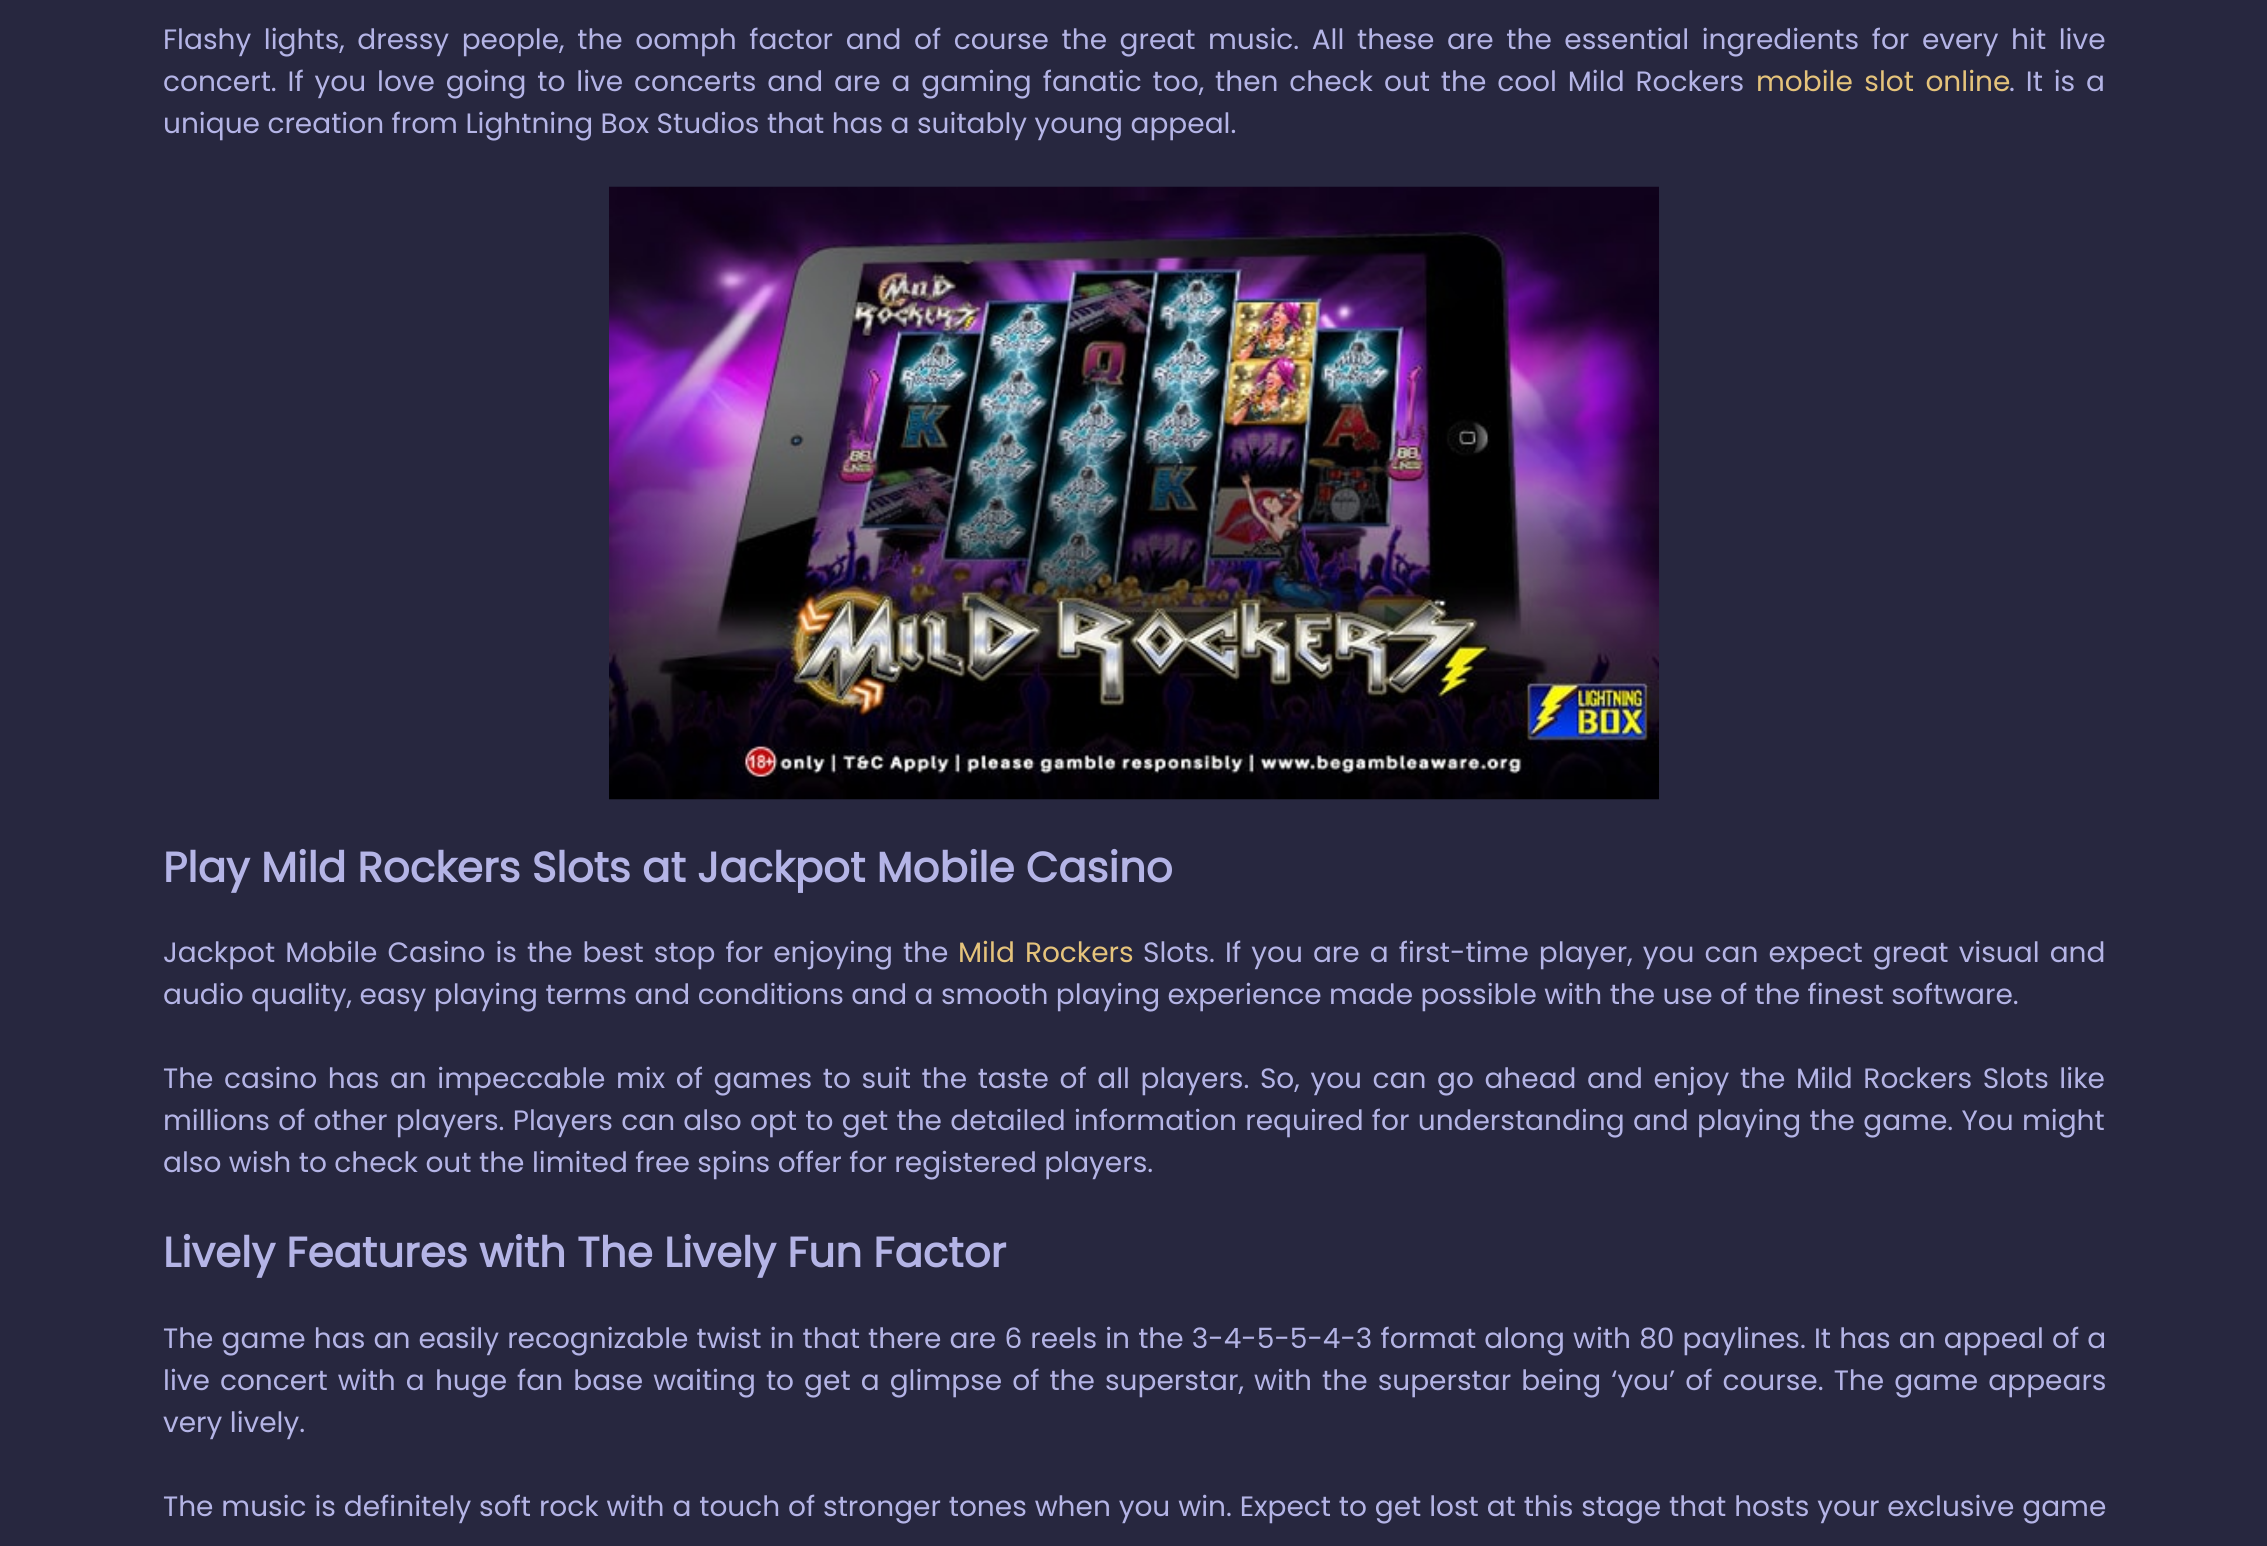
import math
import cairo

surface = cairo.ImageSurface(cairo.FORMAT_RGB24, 2267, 1546)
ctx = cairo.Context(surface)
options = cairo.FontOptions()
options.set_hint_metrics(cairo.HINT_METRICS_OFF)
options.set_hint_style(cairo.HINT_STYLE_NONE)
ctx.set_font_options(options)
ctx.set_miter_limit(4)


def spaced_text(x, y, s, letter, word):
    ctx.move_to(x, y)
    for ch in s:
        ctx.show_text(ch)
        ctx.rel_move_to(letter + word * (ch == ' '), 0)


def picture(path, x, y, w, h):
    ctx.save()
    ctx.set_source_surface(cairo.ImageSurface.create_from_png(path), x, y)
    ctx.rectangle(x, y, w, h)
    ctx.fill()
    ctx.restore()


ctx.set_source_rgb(0.153, 0.153, 0.247)
ctx.paint()
ctx.select_font_face("Poppins")
ctx.set_font_size(28)
ctx.set_source_rgb(0.706, 0.706, 0.902)
spaced_text(163, 49, "Flashy lights, dressy people, the oomph factor and of course the great music. All these are the essential ingredients for every hit live", 0, 5.1)
spaced_text(163, 91, "concert. If you love going to live concerts and are a gaming fanatic too, then check out the cool Mild Rockers", 0, 3.4)
ctx.set_source_rgb(0.898, 0.765, 0.482)
spaced_text(1756, 91, "mobile slot online", 0, 4)
ctx.set_source_rgb(0.706, 0.706, 0.902)
spaced_text(2009, 91, ". It is a", 0, 3.4)
ctx.move_to(163, 133)
ctx.show_text("unique creation from Lightning Box Studios that has a suitably young appeal.")
picture("img1.png", 609, 186, 1050, 614)
ctx.select_font_face("Poppins", cairo.FONT_SLANT_NORMAL, cairo.FONT_WEIGHT_BOLD)
ctx.set_font_size(42)
ctx.move_to(163, 882)
ctx.show_text("Play Mild Rockers Slots at Jackpot Mobile Casino")
ctx.select_font_face("Poppins")
ctx.set_font_size(28)
spaced_text(163, 962, "Jackpot Mobile Casino is the best stop for enjoying the", 0, 2.6)
ctx.set_source_rgb(0.898, 0.765, 0.482)
spaced_text(958, 962, "Mild Rockers", 0, 2.6)
ctx.set_source_rgb(0.706, 0.706, 0.902)
spaced_text(1143, 962, "Slots. If you are a first-time player, you can expect great visual and", 0, 2.6)
ctx.move_to(163, 1004)
ctx.show_text("audio quality, easy playing terms and conditions and a smooth playing experience made possible with the use of the finest software.")
spaced_text(163, 1088, "The casino has an impeccable mix of games to suit the taste of all players. So, you can go ahead and enjoy the Mild Rockers Slots like", 0, 3.1)
spaced_text(163, 1130, "millions of other players. Players can also opt to get the detailed information required for understanding and playing the game. You might", 0, 0.8)
ctx.move_to(163, 1172)
ctx.show_text("also wish to check out the limited free spins offer for registered players.")
ctx.select_font_face("Poppins", cairo.FONT_SLANT_NORMAL, cairo.FONT_WEIGHT_BOLD)
ctx.set_font_size(42)
ctx.move_to(163, 1267)
ctx.show_text("Lively Features with The Lively Fun Factor")
ctx.select_font_face("Poppins")
ctx.set_font_size(28)
spaced_text(163, 1348, "The game has an easily recognizable twist in that there are 6 reels in the 3-4-5-5-4-3 format along with 80 paylines. It has an appeal of a", 0, 0.7)
spaced_text(163, 1390, "live concert with a huge fan base waiting to get a glimpse of the superstar, with the superstar being ‘you’ of course. The game appears", 0, 2.6)
ctx.move_to(163, 1432)
ctx.show_text("very lively.")
spaced_text(163, 1516, "The music is definitely soft rock with a touch of stronger tones when you win. Expect to get lost at this stage that hosts your exclusive game", 0, 0.4)
surface.write_to_png("page.png")
